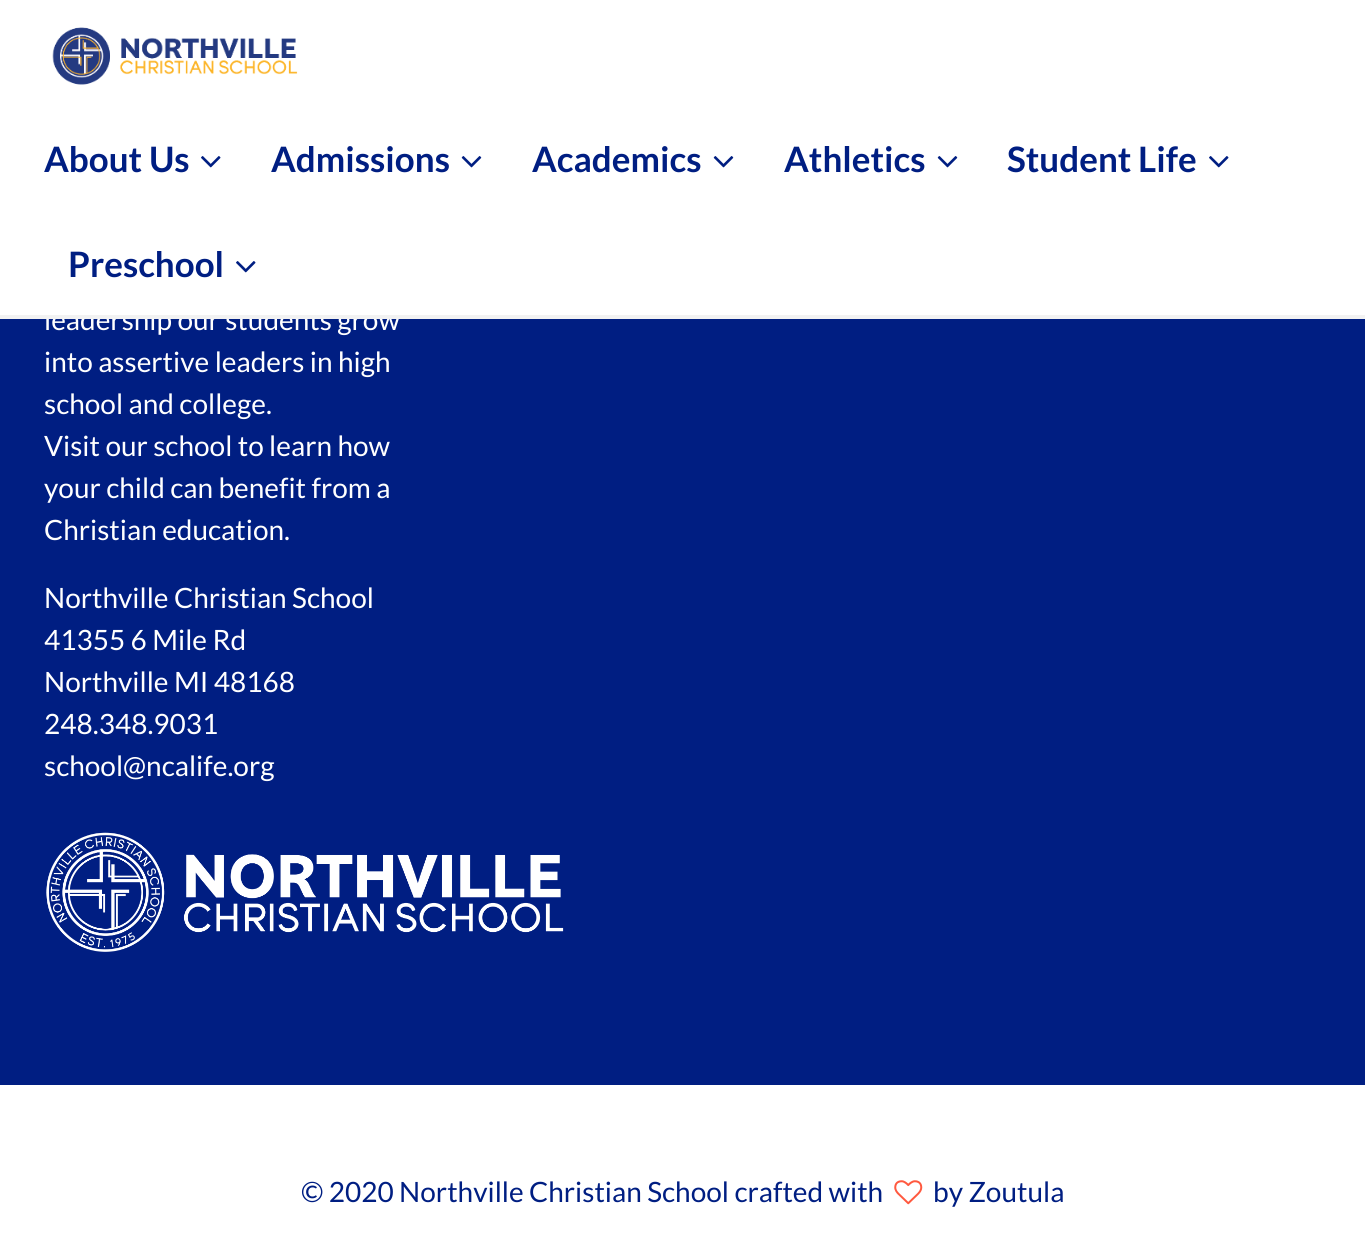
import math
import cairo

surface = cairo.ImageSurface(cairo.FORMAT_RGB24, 1365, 1255)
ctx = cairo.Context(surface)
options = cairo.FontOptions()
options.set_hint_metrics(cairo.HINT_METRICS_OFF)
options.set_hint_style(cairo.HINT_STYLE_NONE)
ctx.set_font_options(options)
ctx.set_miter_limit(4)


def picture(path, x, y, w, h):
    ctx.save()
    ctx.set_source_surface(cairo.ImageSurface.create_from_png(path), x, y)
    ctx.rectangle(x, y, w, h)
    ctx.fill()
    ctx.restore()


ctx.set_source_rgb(1, 1, 1)
ctx.paint()
ctx.set_source_rgb(0, 0.118, 0.51)
ctx.rectangle(0, 319, 1365, 766)
ctx.fill()
ctx.select_font_face("Lato")
ctx.set_font_size(28)
ctx.set_source_rgb(1, 1, 1)
ctx.move_to(44, 330)
ctx.show_text("leadership our students grow")
ctx.set_source_rgb(0.949, 0.949, 0.949)
ctx.rectangle(0, 315, 1365, 4)
ctx.fill()
picture("img1.png", 52, 27, 246, 58)
ctx.select_font_face("Lato", cairo.FONT_SLANT_NORMAL, cairo.FONT_WEIGHT_BOLD)
ctx.set_font_size(35)
ctx.set_source_rgb(0, 0.118, 0.51)
ctx.move_to(44, 172)
ctx.show_text("About Us")
picture("img2.png", 201, 156, 20, 12)
ctx.move_to(271, 172)
ctx.show_text("Admissions")
picture("img3.png", 461, 156, 21, 12)
ctx.move_to(532, 172)
ctx.show_text("Academics")
picture("img3.png", 713, 156, 21, 12)
ctx.move_to(784, 172)
ctx.show_text("Athletics")
picture("img3.png", 937, 156, 21, 12)
ctx.move_to(1007, 172)
ctx.show_text("Student Life")
picture("img2.png", 1209, 156, 20, 12)
ctx.move_to(68, 277)
ctx.show_text("Preschool")
picture("img2.png", 236, 261, 20, 12)
ctx.select_font_face("Lato")
ctx.set_font_size(28)
ctx.set_source_rgb(1, 1, 1)
ctx.move_to(44, 372)
ctx.show_text("into assertive leaders in high")
ctx.move_to(44, 414)
ctx.show_text("school and college.")
ctx.move_to(44, 456)
ctx.show_text("Visit our school to learn how")
ctx.move_to(44, 498)
ctx.show_text("your child can benefit from a")
ctx.move_to(44, 540)
ctx.show_text("Christian education.")
ctx.move_to(44, 608)
ctx.show_text("Northville Christian School")
ctx.move_to(44, 650)
ctx.show_text("41355 6 Mile Rd")
ctx.move_to(44, 692)
ctx.show_text("Northville MI 48168")
ctx.move_to(44, 734)
ctx.show_text("248.348.9031")
ctx.move_to(44, 776)
ctx.show_text("school@ncalife.org")
picture("img4.png", 46, 832, 518, 120)
ctx.set_source_rgb(0, 0.118, 0.51)
ctx.move_to(301, 1202)
ctx.show_text("© 2020 Northville Christian School crafted with")
picture("img5.png", 894, 1180, 29, 25)
ctx.move_to(933, 1202)
ctx.show_text("by Zoutula")
surface.write_to_png("page.png")
